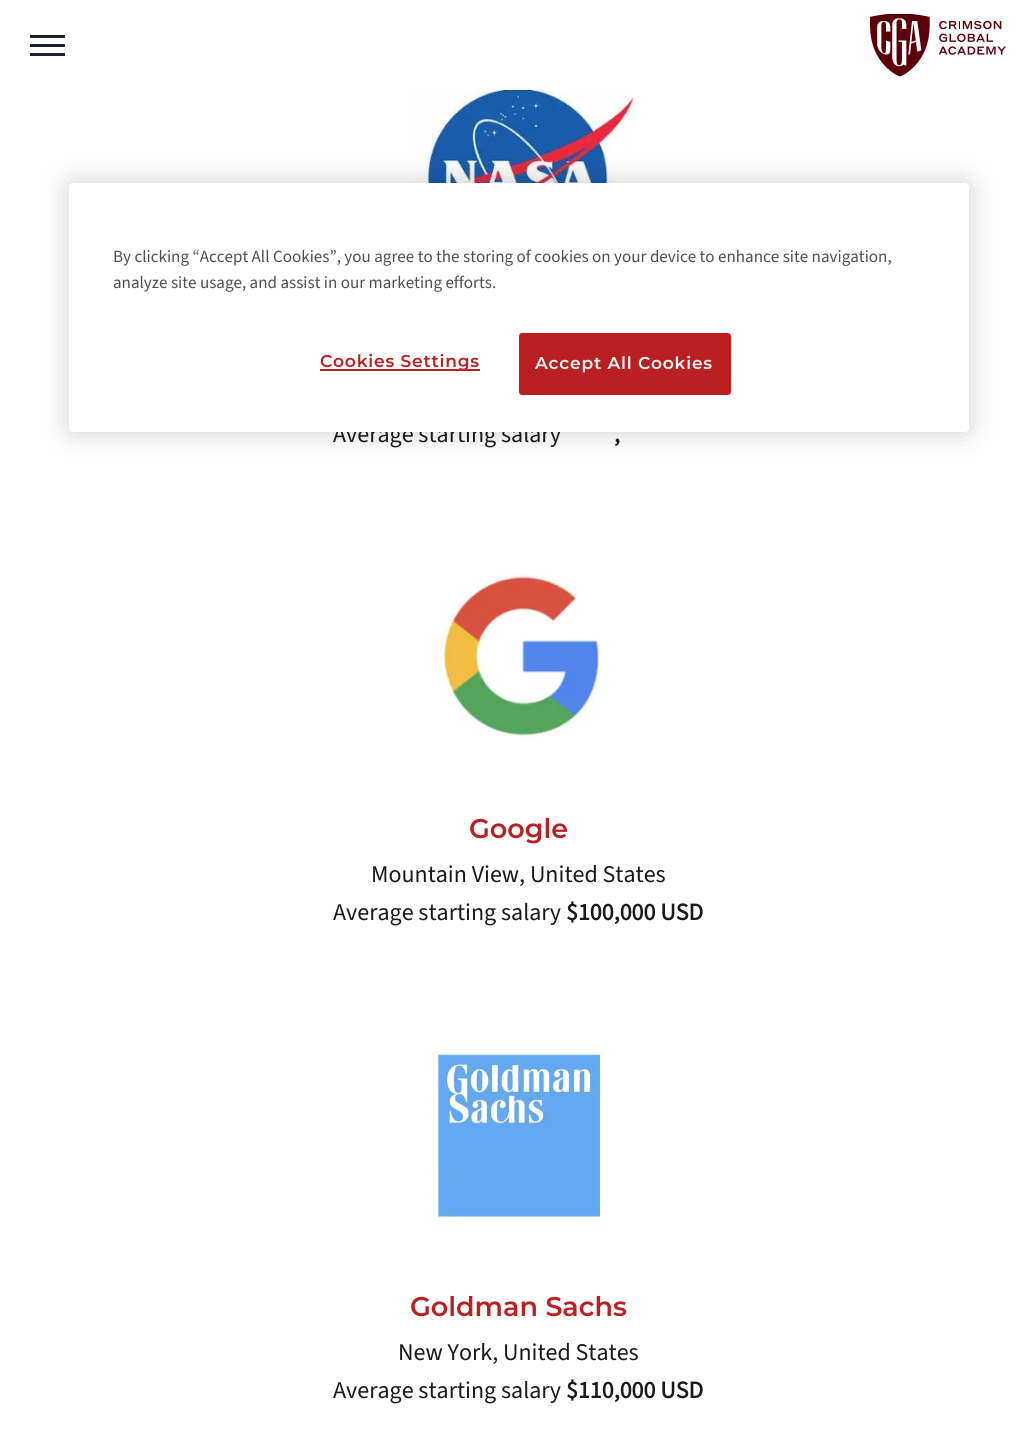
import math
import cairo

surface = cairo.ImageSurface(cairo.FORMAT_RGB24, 1036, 1444)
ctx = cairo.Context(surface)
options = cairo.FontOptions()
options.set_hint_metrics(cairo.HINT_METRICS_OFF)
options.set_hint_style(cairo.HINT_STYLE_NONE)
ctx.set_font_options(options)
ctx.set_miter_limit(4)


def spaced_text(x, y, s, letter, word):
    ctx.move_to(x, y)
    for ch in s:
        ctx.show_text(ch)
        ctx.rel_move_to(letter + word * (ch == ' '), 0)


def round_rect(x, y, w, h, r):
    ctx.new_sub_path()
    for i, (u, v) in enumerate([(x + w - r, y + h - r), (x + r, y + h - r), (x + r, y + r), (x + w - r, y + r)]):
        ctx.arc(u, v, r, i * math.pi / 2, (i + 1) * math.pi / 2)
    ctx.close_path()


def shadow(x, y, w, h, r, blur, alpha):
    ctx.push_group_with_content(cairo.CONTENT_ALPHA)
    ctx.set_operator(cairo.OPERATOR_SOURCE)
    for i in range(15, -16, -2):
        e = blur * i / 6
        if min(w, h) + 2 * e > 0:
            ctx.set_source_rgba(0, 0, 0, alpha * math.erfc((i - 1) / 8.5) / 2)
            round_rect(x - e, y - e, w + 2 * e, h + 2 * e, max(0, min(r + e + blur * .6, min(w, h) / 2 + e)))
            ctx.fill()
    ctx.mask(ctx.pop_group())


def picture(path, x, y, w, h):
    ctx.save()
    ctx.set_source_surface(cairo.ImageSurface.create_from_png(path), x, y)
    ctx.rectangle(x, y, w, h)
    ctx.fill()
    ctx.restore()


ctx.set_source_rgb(1, 1, 1)
ctx.paint()
picture("img2.png", 413, 90, 223, 93)
ctx.set_source_rgb(0, 0, 0)
shadow(69, 183, 900, 249, 4, 13.5, 0.2)
ctx.select_font_face("Source Sans 3")
ctx.set_font_size(24)
ctx.set_source_rgb(0.102, 0.102, 0.102)
ctx.move_to(333, 442)
ctx.show_text("Average starting salary")
ctx.set_source_rgb(1, 1, 1)
round_rect(69, 183, 900, 249, 4)
ctx.fill()
ctx.set_font_size(17.05)
ctx.set_source_rgb(0.31, 0.31, 0.31)
ctx.move_to(113, 262)
ctx.show_text("By clicking “Accept All Cookies”, you agree to the storing of cookies on your device to enhance site navigation,")
ctx.move_to(113, 288)
ctx.show_text("analyze site usage, and assist in our marketing efforts.")
ctx.set_source_rgb(0.729, 0.122, 0.133)
ctx.rectangle(320, 369, 160, 2)
ctx.fill()
ctx.select_font_face("Montserrat SemiBold")
spaced_text(320, 367, "Cookies Settings", 0.8, 0)
round_rect(520, 334, 210, 60, 2)
ctx.fill_preserve()
ctx.stroke()
ctx.set_source_rgb(1, 1, 1)
spaced_text(535, 369, "Accept All Cookies", 0.8, 0)
ctx.set_source_rgb(0.106, 0.118, 0.173)
ctx.rectangle(30, 35, 35, 3)
ctx.fill()
ctx.rectangle(30, 44, 35, 3)
ctx.fill()
ctx.rectangle(30, 53, 35, 3)
ctx.fill()
picture("img1.png", 870, 14, 136, 63)
ctx.select_font_face("Source Sans 3", cairo.FONT_SLANT_NORMAL, cairo.FONT_WEIGHT_BOLD)
ctx.set_font_size(24)
ctx.set_source_rgb(0.102, 0.102, 0.102)
ctx.move_to(614, 442)
ctx.show_text(",")
picture("img3.png", 441, 574, 159, 163)
ctx.select_font_face("Montserrat SemiBold")
ctx.set_font_size(27)
ctx.set_source_rgb(0.729, 0.122, 0.133)
ctx.move_to(469, 838)
ctx.show_text("Google")
ctx.select_font_face("Source Sans 3")
ctx.set_font_size(24)
ctx.set_source_rgb(0.102, 0.102, 0.102)
ctx.move_to(371, 882)
ctx.show_text("Mountain View, United States")
ctx.move_to(333, 920)
ctx.show_text("Average starting salary")
ctx.select_font_face("Source Sans 3", cairo.FONT_SLANT_NORMAL, cairo.FONT_WEIGHT_BOLD)
ctx.move_to(566, 920)
ctx.show_text("$100,000 USD")
picture("img4.png", 436, 1052, 167, 167)
ctx.select_font_face("Montserrat SemiBold")
ctx.set_font_size(27)
ctx.set_source_rgb(0.729, 0.122, 0.133)
ctx.move_to(410, 1316)
ctx.show_text("Goldman Sachs")
ctx.select_font_face("Source Sans 3")
ctx.set_font_size(24)
ctx.set_source_rgb(0.102, 0.102, 0.102)
ctx.move_to(398, 1360)
ctx.show_text("New York, United States")
ctx.move_to(333, 1398)
ctx.show_text("Average starting salary")
ctx.select_font_face("Source Sans 3", cairo.FONT_SLANT_NORMAL, cairo.FONT_WEIGHT_BOLD)
ctx.move_to(566, 1398)
ctx.show_text("$110,000 USD")
surface.write_to_png("page.png")
